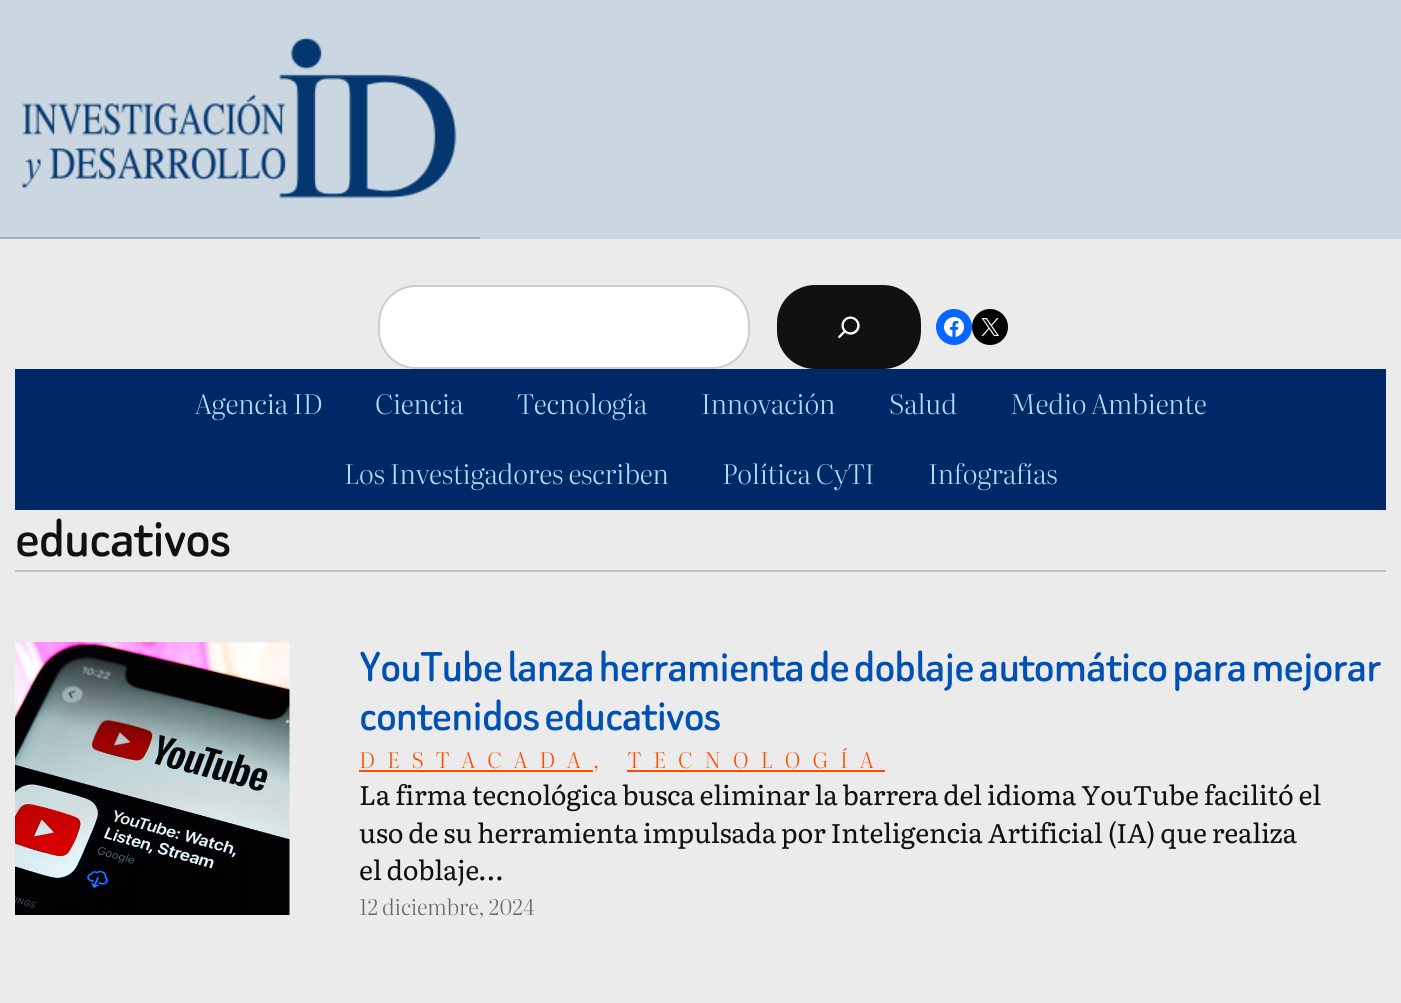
import math
import cairo

surface = cairo.ImageSurface(cairo.FORMAT_RGB24, 1401, 1003)
ctx = cairo.Context(surface)
options = cairo.FontOptions()
options.set_hint_metrics(cairo.HINT_METRICS_OFF)
options.set_hint_style(cairo.HINT_STYLE_NONE)
ctx.set_font_options(options)
ctx.set_miter_limit(4)


def spaced_text(x, y, s, letter, word):
    ctx.move_to(x, y)
    for ch in s:
        ctx.show_text(ch)
        ctx.rel_move_to(letter + word * (ch == ' '), 0)


def round_rect(x, y, w, h, r):
    ctx.new_sub_path()
    for i, (u, v) in enumerate([(x + w - r, y + h - r), (x + r, y + h - r), (x + r, y + r), (x + w - r, y + r)]):
        ctx.arc(u, v, r, i * math.pi / 2, (i + 1) * math.pi / 2)
    ctx.close_path()


def picture(path, x, y, w, h):
    ctx.save()
    ctx.set_source_surface(cairo.ImageSurface.create_from_png(path), x, y)
    ctx.rectangle(x, y, w, h)
    ctx.fill()
    ctx.restore()


ctx.set_source_rgb(0.918, 0.918, 0.918)
ctx.paint()
ctx.set_source_rgb(0.792, 0.843, 0.878)
ctx.rectangle(0, 0, 1401, 239)
ctx.fill()
ctx.set_source_rgb(0.647, 0.686, 0.718)
ctx.rectangle(0, 237, 480, 2)
ctx.fill()
picture("img1.png", 22, 37, 435, 162)
ctx.set_source_rgb(1, 1, 1)
round_rect(378, 285, 372, 84, 38)
ctx.fill()
round_rect(379, 286, 370, 82, 37)
ctx.set_source_rgba(0, 0, 0, 0.2)
ctx.stroke()
ctx.set_source_rgb(0.067, 0.067, 0.067)
round_rect(777, 285, 144, 84, 38)
ctx.fill()
picture("img2.png", 837, 316, 23, 23)
ctx.set_source_rgb(0.031, 0.4, 1)
ctx.arc(954, 327, 18, 0, 2 * math.pi)
ctx.fill()
picture("img3.png", 944, 317, 20, 20)
ctx.set_source_rgb(0, 0, 0)
ctx.arc(990, 327, 18, 0, 2 * math.pi)
ctx.fill()
picture("img4.png", 981, 318, 18, 18)
ctx.set_source_rgb(0, 0.153, 0.4)
ctx.rectangle(15, 369, 1371, 141)
ctx.fill()
ctx.select_font_face("Literata Light")
ctx.set_font_size(26.9)
ctx.set_source_rgb(0.655, 0.886, 0.973)
spaced_text(195, 414, "Agencia ID", -0.27, 0)
spaced_text(375, 414, "Ciencia", -0.27, 0)
spaced_text(517, 414, "Tecnología", -0.27, 0)
spaced_text(701, 414, "Innovación", -0.27, 0)
spaced_text(889, 414, "Salud", -0.27, 0)
spaced_text(1010, 414, "Medio Ambiente", -0.27, 0)
spaced_text(344, 484, "Los Investigadores escriben", -0.27, 0)
spaced_text(722, 484, "Política CyTI", -0.27, 0)
spaced_text(928, 484, "Infografías", -0.27, 0)
ctx.select_font_face("Beiruti Medium")
ctx.set_font_size(59.5)
ctx.set_source_rgb(0.067, 0.067, 0.067)
spaced_text(15, 556, "educativos", -1.25, 0)
ctx.set_source_rgb(0.749, 0.749, 0.749)
ctx.rectangle(15, 570, 1371, 2)
ctx.fill()
picture("img5.png", 15, 642, 275, 273)
ctx.set_font_size(48.6)
ctx.set_source_rgb(0, 0.318, 0.702)
spaced_text(359, 681, "YouTube lanza herramienta de doblaje automático para mejorar", -0.97, 0)
spaced_text(359, 730, "contenidos educativos", -0.97, 0)
ctx.set_source_rgb(1, 0.302, 0)
ctx.rectangle(359, 770, 234, 2)
ctx.fill()
ctx.select_font_face("Literata Light")
ctx.set_font_size(21.6)
spaced_text(359, 768, "DESTACADA, TECNOLOGÍA", 12, 0)
ctx.rectangle(627, 770, 258, 2)
ctx.fill()
ctx.select_font_face("Literata")
ctx.set_font_size(26.9)
ctx.set_source_rgb(0.067, 0.067, 0.067)
spaced_text(359, 805, "La firma tecnológica busca eliminar la barrera del idioma YouTube facilitó el", -0.27, 0)
spaced_text(359, 843, "uso de su herramienta impulsada por Inteligencia Artificial (IA) que realiza", -0.27, 0)
spaced_text(359, 880, "el doblaje…", -0.27, 0)
ctx.select_font_face("Literata Light")
ctx.set_font_size(21.6)
ctx.set_source_rgb(0.408, 0.408, 0.408)
spaced_text(359, 915, "12 diciembre, 2024", -0.27, 0)
surface.write_to_png("page.png")
